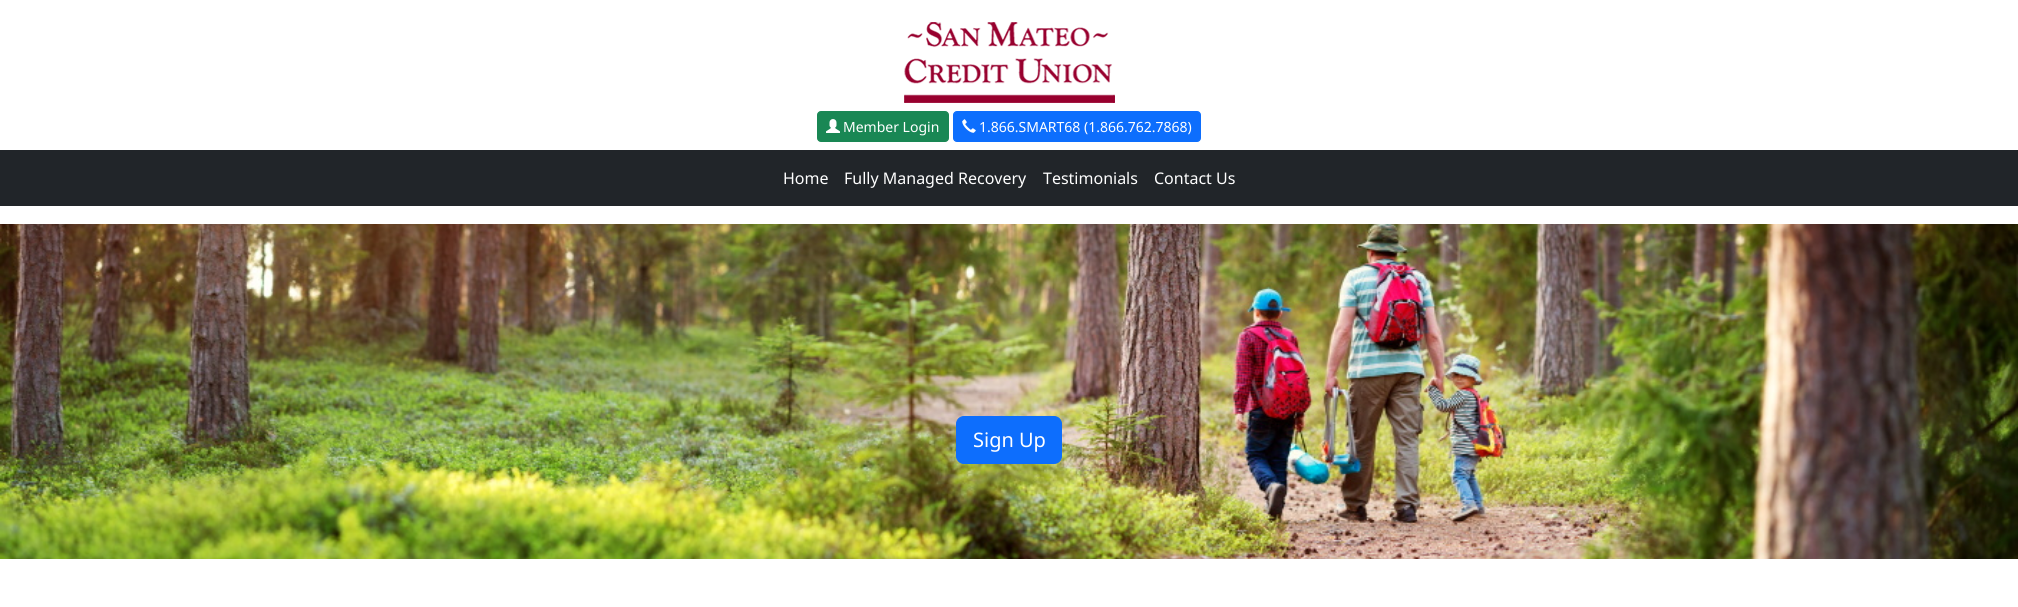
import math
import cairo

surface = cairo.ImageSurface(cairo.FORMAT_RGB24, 2018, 607)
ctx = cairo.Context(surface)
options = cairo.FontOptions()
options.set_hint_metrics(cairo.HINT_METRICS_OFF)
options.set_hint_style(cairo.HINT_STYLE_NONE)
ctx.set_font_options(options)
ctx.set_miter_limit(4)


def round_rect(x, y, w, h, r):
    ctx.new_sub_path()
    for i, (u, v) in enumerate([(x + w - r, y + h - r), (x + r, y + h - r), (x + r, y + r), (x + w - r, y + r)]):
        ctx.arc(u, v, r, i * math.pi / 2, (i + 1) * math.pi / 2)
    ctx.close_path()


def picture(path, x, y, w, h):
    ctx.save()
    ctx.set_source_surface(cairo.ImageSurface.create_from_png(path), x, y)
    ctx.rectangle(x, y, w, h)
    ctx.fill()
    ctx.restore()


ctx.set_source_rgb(1, 1, 1)
ctx.paint()
picture("img1.png", 904, 22, 211, 81)
ctx.set_source_rgb(0.098, 0.529, 0.329)
round_rect(817.5, 111.5, 131, 30, 3.5)
ctx.fill_preserve()
ctx.set_line_width(1)
ctx.stroke()
picture("img2.png", 826, 119, 14, 14)
ctx.select_font_face("Noto Sans")
ctx.set_font_size(14)
ctx.set_source_rgb(1, 1, 1)
ctx.move_to(843, 132)
ctx.show_text("Member Login")
ctx.set_source_rgb(0.051, 0.431, 0.992)
round_rect(953.5, 111.5, 247, 30, 3.5)
ctx.fill_preserve()
ctx.stroke()
picture("img3.png", 962, 119, 14, 14)
ctx.set_source_rgb(1, 1, 1)
ctx.move_to(979, 132)
ctx.show_text("1.866.SMART68 (1.866.762.7868)")
ctx.set_source_rgb(0.129, 0.145, 0.161)
ctx.rectangle(0, 150, 2018, 56)
ctx.fill()
ctx.set_font_size(16)
ctx.set_source_rgb(1, 1, 1)
ctx.move_to(783, 184)
ctx.show_text("Home")
ctx.move_to(844, 184)
ctx.show_text("Fully Managed Recovery")
ctx.move_to(1043, 184)
ctx.show_text("Testimonials")
ctx.move_to(1154, 184)
ctx.show_text("Contact Us")
picture("img4.png", 0, 224, 2018, 335)
ctx.set_source_rgb(0.051, 0.431, 0.992)
round_rect(956.5, 416.5, 105, 47, 7.5)
ctx.fill_preserve()
ctx.stroke()
ctx.set_font_size(20)
ctx.set_source_rgb(1, 1, 1)
ctx.move_to(973, 447)
ctx.show_text("Sign Up")
surface.write_to_png("page.png")
